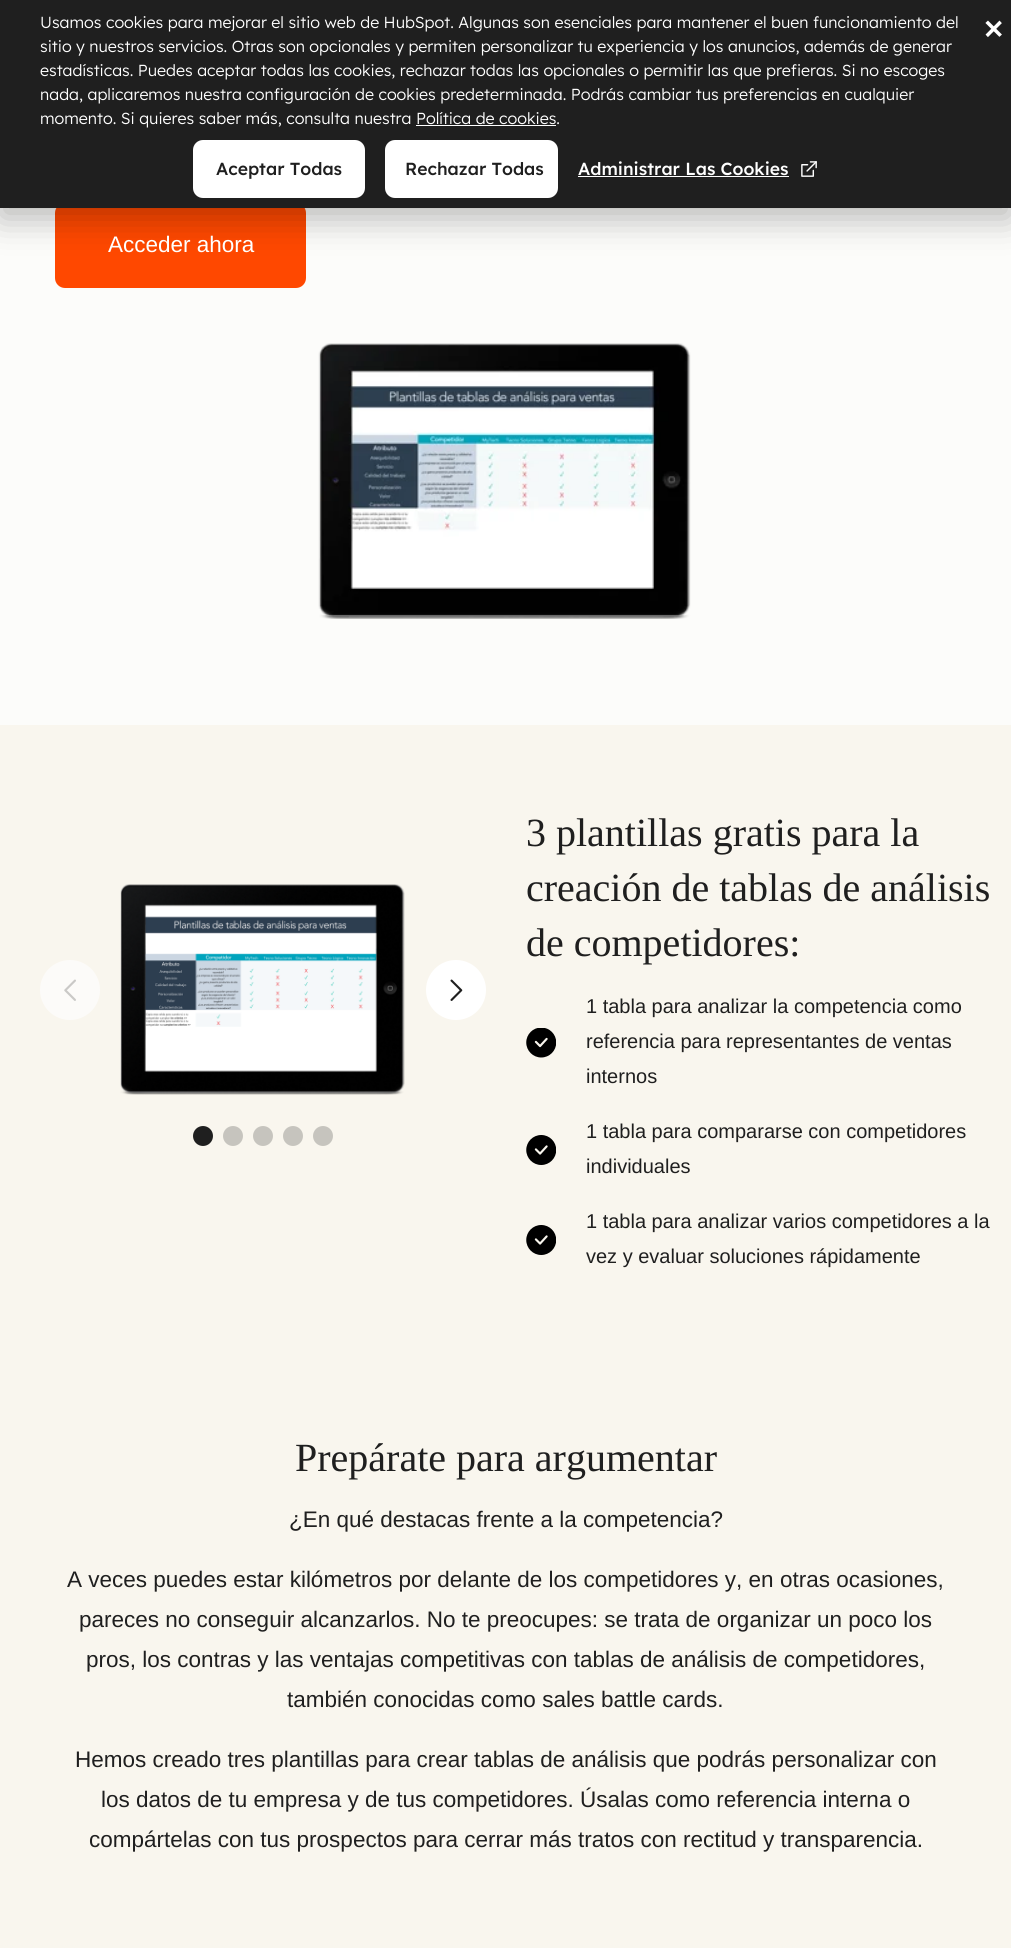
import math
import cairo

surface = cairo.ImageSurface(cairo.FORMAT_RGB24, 1011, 1948)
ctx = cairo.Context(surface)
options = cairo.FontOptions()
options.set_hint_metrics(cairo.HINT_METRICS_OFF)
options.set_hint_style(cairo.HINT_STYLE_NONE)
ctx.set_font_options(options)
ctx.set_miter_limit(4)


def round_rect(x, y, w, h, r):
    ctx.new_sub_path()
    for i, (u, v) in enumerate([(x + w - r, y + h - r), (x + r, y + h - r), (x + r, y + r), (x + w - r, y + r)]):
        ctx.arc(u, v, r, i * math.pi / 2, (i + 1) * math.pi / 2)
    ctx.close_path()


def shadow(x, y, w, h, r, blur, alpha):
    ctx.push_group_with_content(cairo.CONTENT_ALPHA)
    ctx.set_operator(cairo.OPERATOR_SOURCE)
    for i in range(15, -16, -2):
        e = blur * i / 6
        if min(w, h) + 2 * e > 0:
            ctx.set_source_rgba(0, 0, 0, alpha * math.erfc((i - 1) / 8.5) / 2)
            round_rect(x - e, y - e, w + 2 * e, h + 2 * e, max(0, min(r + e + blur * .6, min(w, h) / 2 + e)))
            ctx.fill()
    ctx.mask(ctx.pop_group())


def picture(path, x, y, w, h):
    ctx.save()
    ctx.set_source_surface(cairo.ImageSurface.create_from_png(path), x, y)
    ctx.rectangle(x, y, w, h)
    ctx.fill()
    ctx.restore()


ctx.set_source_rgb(0.988, 0.988, 0.98)
ctx.paint()
ctx.set_source_rgb(1, 0.282, 0)
round_rect(55, 203, 251, 85, 10)
ctx.fill()
ctx.set_source_rgb(0, 0, 0)
shadow(0, 10, 1011, 208, 0, 17.5, 0.28)
ctx.set_source_rgb(0.122, 0.122, 0.122)
ctx.rectangle(0, 0, 1011, 208)
ctx.fill()
ctx.select_font_face("Lexend Deca Light")
ctx.set_font_size(16)
ctx.set_source_rgb(1, 1, 1)
ctx.move_to(40, 28)
ctx.show_text("Usamos cookies para mejorar el sitio web de HubSpot. Algunas son esenciales para mantener el buen funcionamiento del")
ctx.move_to(40, 52)
ctx.show_text("sitio y nuestros servicios. Otras son opcionales y permiten personalizar tu experiencia y los anuncios, además de generar")
ctx.move_to(40, 76)
ctx.show_text("estadísticas. Puedes aceptar todas las cookies, rechazar todas las opcionales o permitir las que prefieras. Si no escoges")
ctx.move_to(40, 100)
ctx.show_text("nada, aplicaremos nuestra configuración de cookies predeterminada. Podrás cambiar tus preferencias en cualquier")
ctx.move_to(40, 124)
ctx.show_text("momento. Si quieres saber más, consulta nuestra Política de cookies.")
ctx.rectangle(416, 125, 140, 1)
ctx.fill()
round_rect(193, 140, 172, 58, 10)
ctx.fill()
ctx.select_font_face("Lexend Deca Medium")
ctx.set_font_size(17.5)
ctx.set_source_rgb(0.122, 0.122, 0.122)
ctx.move_to(216, 175)
ctx.show_text("Aceptar Todas")
ctx.set_source_rgb(1, 1, 1)
round_rect(385, 140, 173, 58, 10)
ctx.fill()
ctx.set_source_rgb(0.122, 0.122, 0.122)
ctx.move_to(405, 175)
ctx.show_text("Rechazar Todas")
ctx.set_source_rgb(1, 1, 1)
ctx.move_to(578, 175)
ctx.show_text("Administrar Las Cookies")
ctx.rectangle(578, 176, 211, 1)
ctx.fill()
picture("img1.png", 801, 161, 16, 16)
ctx.select_font_face("Lexend Deca")
ctx.set_font_size(40)
ctx.move_to(984, 40)
ctx.show_text("×")
ctx.select_font_face("Liberation Sans")
ctx.set_font_size(22.5)
ctx.move_to(108, 252)
ctx.show_text("Acceder ahora")
picture("img2.png", 318, 343, 373, 276)
ctx.set_source_rgb(0.973, 0.961, 0.933)
ctx.rectangle(0, 725, 1011, 1223)
ctx.fill()
picture("img3.png", 120, 884, 285, 211)
ctx.set_source_rgb(0.988, 0.984, 0.976)
ctx.arc(70, 990, 30, 0, 2 * math.pi)
ctx.fill()
picture("img4.png", 64, 979, 12, 22)
ctx.set_source_rgb(1, 1, 1)
ctx.arc(456, 990, 30, 0, 2 * math.pi)
ctx.fill()
picture("img5.png", 450, 979, 13, 22)
ctx.set_source_rgb(0.122, 0.122, 0.122)
ctx.arc(203, 1136, 10, 0, 2 * math.pi)
ctx.fill()
ctx.set_source_rgb(0.776, 0.769, 0.745)
ctx.arc(233, 1136, 10, 0, 2 * math.pi)
ctx.fill()
ctx.arc(263, 1136, 10, 0, 2 * math.pi)
ctx.fill()
ctx.arc(293, 1136, 10, 0, 2 * math.pi)
ctx.fill()
ctx.arc(323, 1136, 10, 0, 2 * math.pi)
ctx.fill()
ctx.select_font_face("Liberation Serif")
ctx.set_font_size(40)
ctx.set_source_rgb(0.122, 0.122, 0.122)
ctx.move_to(526, 846)
ctx.show_text("3 plantillas gratis para la")
ctx.move_to(526, 901)
ctx.show_text("creación de tablas de análisis")
ctx.move_to(526, 956)
ctx.show_text("de competidores:")
picture("img6.png", 526, 1028, 30, 30)
ctx.select_font_face("Liberation Sans")
ctx.set_font_size(20)
ctx.move_to(586, 1013)
ctx.show_text("1 tabla para analizar la competencia como")
ctx.move_to(586, 1048)
ctx.show_text("referencia para representantes de ventas")
ctx.move_to(586, 1083)
ctx.show_text("internos")
picture("img7.png", 526, 1135, 30, 30)
ctx.move_to(586, 1138)
ctx.show_text("1 tabla para compararse con competidores")
ctx.move_to(586, 1173)
ctx.show_text("individuales")
picture("img7.png", 526, 1225, 30, 30)
ctx.move_to(586, 1228)
ctx.show_text("1 tabla para analizar varios competidores a la")
ctx.move_to(586, 1263)
ctx.show_text("vez y evaluar soluciones rápidamente")
ctx.select_font_face("Liberation Serif")
ctx.set_font_size(40)
ctx.move_to(295, 1471)
ctx.show_text("Prepárate para argumentar")
ctx.select_font_face("Liberation Sans")
ctx.set_font_size(22.5)
ctx.move_to(289, 1527)
ctx.show_text("¿En qué destacas frente a la competencia?")
ctx.move_to(67, 1587)
ctx.show_text("A veces puedes estar kilómetros por delante de los competidores y, en otras ocasiones,")
ctx.move_to(79, 1627)
ctx.show_text("pareces no conseguir alcanzarlos. No te preocupes: se trata de organizar un poco los")
ctx.move_to(86, 1667)
ctx.show_text("pros, los contras y las ventajas competitivas con tablas de análisis de competidores,")
ctx.move_to(287, 1707)
ctx.show_text("también conocidas como sales battle cards.")
ctx.move_to(75, 1767)
ctx.show_text("Hemos creado tres plantillas para crear tablas de análisis que podrás personalizar con")
ctx.move_to(101, 1807)
ctx.show_text("los datos de tu empresa y de tus competidores. Úsalas como referencia interna o")
ctx.move_to(89, 1847)
ctx.show_text("compártelas con tus prospectos para cerrar más tratos con rectitud y transparencia.")
surface.write_to_png("page.png")
